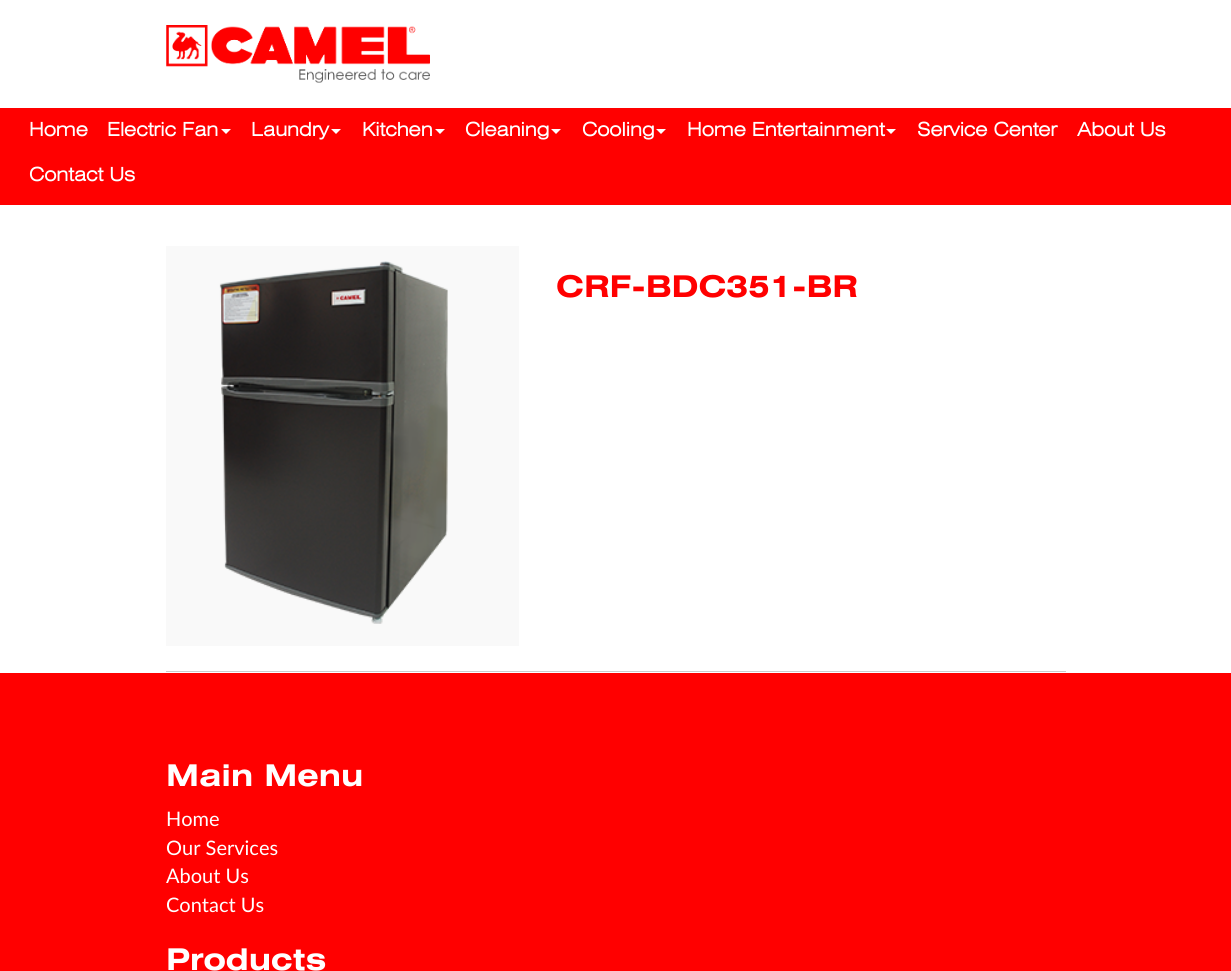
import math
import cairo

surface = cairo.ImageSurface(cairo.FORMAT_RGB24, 1231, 971)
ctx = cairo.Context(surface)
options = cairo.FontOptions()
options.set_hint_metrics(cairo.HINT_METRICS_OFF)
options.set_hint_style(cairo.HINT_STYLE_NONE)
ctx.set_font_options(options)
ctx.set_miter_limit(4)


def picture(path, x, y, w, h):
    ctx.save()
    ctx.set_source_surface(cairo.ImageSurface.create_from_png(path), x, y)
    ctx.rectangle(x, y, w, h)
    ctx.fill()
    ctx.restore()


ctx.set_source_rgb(1, 1, 1)
ctx.paint()
picture("img1.png", 166, 25, 264, 58)
ctx.set_source_rgb(1, 0, 0)
ctx.rectangle(0, 108, 1231, 97)
ctx.fill()
ctx.select_font_face("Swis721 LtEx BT", cairo.FONT_SLANT_NORMAL, cairo.FONT_WEIGHT_BOLD)
ctx.set_font_size(18.75)
ctx.set_source_rgb(1, 1, 1)
ctx.move_to(29, 136)
ctx.show_text("Home")
ctx.move_to(107, 136)
ctx.show_text("Electric Fan")
ctx.new_path()
ctx.move_to(221, 129)
ctx.line_to(231, 129)
ctx.line_to(226, 134)
ctx.close_path()
ctx.fill()
ctx.move_to(251, 136)
ctx.show_text("Laundry")
ctx.new_path()
ctx.move_to(331, 129)
ctx.line_to(341, 129)
ctx.line_to(336, 134)
ctx.close_path()
ctx.fill()
ctx.move_to(362, 136)
ctx.show_text("Kitchen")
ctx.new_path()
ctx.move_to(435, 129)
ctx.line_to(445, 129)
ctx.line_to(440, 134)
ctx.close_path()
ctx.fill()
ctx.move_to(465, 136)
ctx.show_text("Cleaning")
ctx.new_path()
ctx.move_to(551, 129)
ctx.line_to(561, 129)
ctx.line_to(556, 134)
ctx.close_path()
ctx.fill()
ctx.move_to(582, 136)
ctx.show_text("Cooling")
ctx.new_path()
ctx.move_to(656, 129)
ctx.line_to(666, 129)
ctx.line_to(661, 134)
ctx.close_path()
ctx.fill()
ctx.move_to(687, 136)
ctx.show_text("Home Entertainment")
ctx.new_path()
ctx.move_to(886, 129)
ctx.line_to(896, 129)
ctx.line_to(891, 134)
ctx.close_path()
ctx.fill()
ctx.move_to(917, 136)
ctx.show_text("Service Center")
ctx.move_to(1077, 136)
ctx.show_text("About Us")
ctx.move_to(29, 181)
ctx.show_text("Contact Us")
ctx.set_source_rgb(0.973, 0.973, 0.973)
ctx.rectangle(166, 246, 353, 400)
ctx.fill()
picture("img2.png", 219, 261, 229, 363)
ctx.select_font_face("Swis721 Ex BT", cairo.FONT_SLANT_NORMAL, cairo.FONT_WEIGHT_BOLD)
ctx.set_font_size(30)
ctx.set_source_rgb(1, 0, 0)
ctx.move_to(556, 297)
ctx.show_text("CRF-BDC351-BR")
ctx.set_source_rgb(0.8, 0.8, 0.8)
ctx.rectangle(166, 671, 900, 1)
ctx.fill()
ctx.set_source_rgb(1, 0, 0)
ctx.rectangle(0, 673, 1231, 298)
ctx.fill()
ctx.set_source_rgb(1, 1, 1)
ctx.move_to(166, 786)
ctx.show_text("Main Menu")
ctx.select_font_face("Lato")
ctx.set_font_size(20)
ctx.move_to(166, 826)
ctx.show_text("Home")
ctx.move_to(166, 855)
ctx.show_text("Our Services")
ctx.move_to(166, 883)
ctx.show_text("About Us")
ctx.move_to(166, 912)
ctx.show_text("Contact Us")
ctx.select_font_face("Swis721 Ex BT", cairo.FONT_SLANT_NORMAL, cairo.FONT_WEIGHT_BOLD)
ctx.set_font_size(30)
ctx.move_to(166, 970)
ctx.show_text("Products")
surface.write_to_png("page.png")
